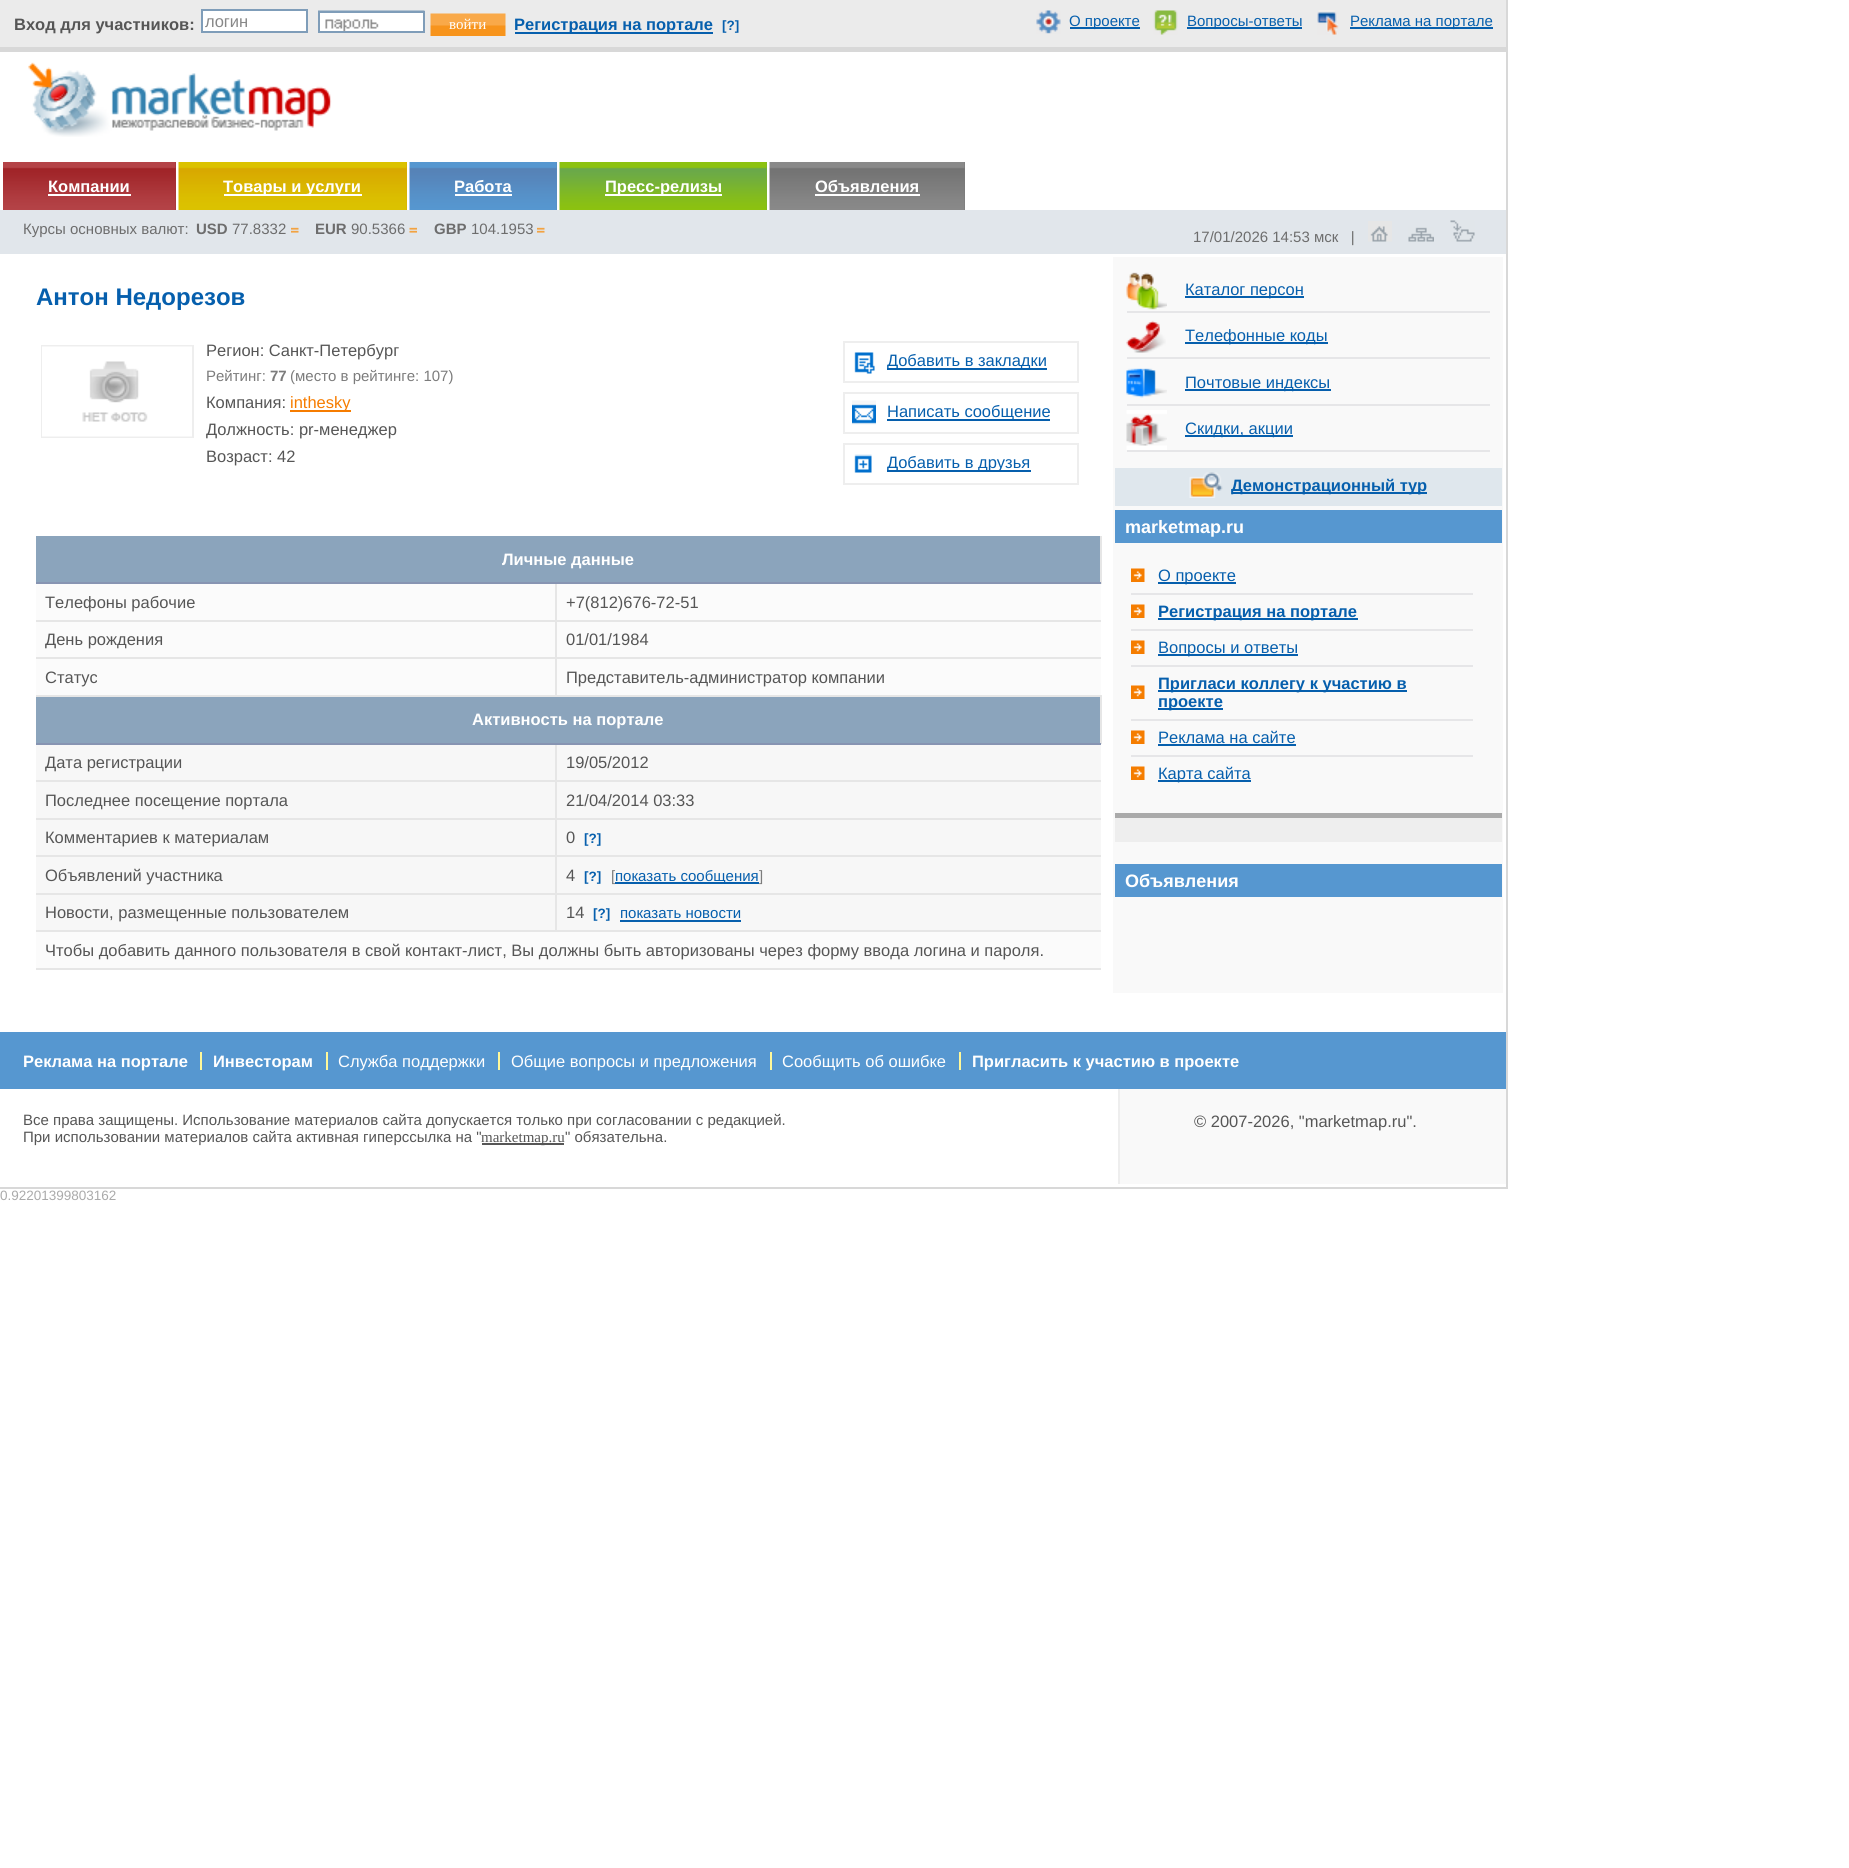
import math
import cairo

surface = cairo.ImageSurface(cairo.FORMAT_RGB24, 1849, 1868)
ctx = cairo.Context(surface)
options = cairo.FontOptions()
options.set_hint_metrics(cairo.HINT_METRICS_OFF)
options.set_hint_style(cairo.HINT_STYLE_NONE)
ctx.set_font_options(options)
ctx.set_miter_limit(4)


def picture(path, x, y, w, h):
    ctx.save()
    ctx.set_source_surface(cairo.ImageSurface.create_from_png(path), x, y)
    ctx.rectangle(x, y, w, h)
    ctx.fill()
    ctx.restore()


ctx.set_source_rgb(1, 1, 1)
ctx.paint()
ctx.set_source_rgb(0.918, 0.918, 0.918)
ctx.rectangle(0, 0, 1506, 47)
ctx.fill()
ctx.set_source_rgb(0.847, 0.847, 0.847)
ctx.rectangle(1506, 0, 2, 51)
ctx.fill()
ctx.rectangle(0, 47, 1508, 5)
ctx.fill()
ctx.select_font_face("Liberation Sans", cairo.FONT_SLANT_NORMAL, cairo.FONT_WEIGHT_BOLD)
ctx.set_font_size(16.5)
ctx.set_source_rgb(0.337, 0.337, 0.337)
ctx.move_to(14, 30)
ctx.show_text("Вход для участников:")
ctx.set_source_rgb(1, 1, 1)
ctx.rectangle(202, 10, 105, 22)
ctx.fill_preserve()
ctx.set_source_rgb(0.498, 0.616, 0.725)
ctx.stroke()
ctx.select_font_face("Liberation Sans")
ctx.set_source_rgb(0.533, 0.533, 0.533)
ctx.move_to(205, 27)
ctx.show_text("логин")
ctx.set_source_rgb(1, 1, 1)
ctx.rectangle(320, 13, 103, 18)
ctx.fill()
picture("img1.png", 318, 10, 107, 21)
ctx.rectangle(319, 12, 105, 20)
ctx.set_source_rgb(0.498, 0.616, 0.725)
ctx.stroke()
picture("img2.png", 430, 13, 76, 23)
ctx.select_font_face("Liberation Serif")
ctx.set_font_size(15)
ctx.set_source_rgb(1, 1, 1)
ctx.move_to(449, 29)
ctx.show_text("войти")
ctx.set_source_rgb(0.027, 0.373, 0.678)
ctx.rectangle(515, 32, 198, 2)
ctx.fill()
ctx.select_font_face("Liberation Sans", cairo.FONT_SLANT_NORMAL, cairo.FONT_WEIGHT_BOLD)
ctx.set_font_size(16.5)
ctx.move_to(514, 30)
ctx.show_text("Регистрация на портале")
ctx.set_font_size(13.5)
ctx.move_to(722, 30)
ctx.show_text("[?]")
picture("img3.png", 1036, 10, 25, 24)
ctx.rectangle(1070, 27, 70, 2)
ctx.fill()
ctx.select_font_face("Liberation Sans")
ctx.set_font_size(15)
ctx.move_to(1069, 26)
ctx.show_text("О проекте")
picture("img4.png", 1153, 10, 25, 25)
ctx.rectangle(1187, 27, 115, 2)
ctx.fill()
ctx.move_to(1187, 26)
ctx.show_text("Вопросы-ответы")
picture("img5.png", 1317, 10, 22, 25)
ctx.rectangle(1350, 27, 143, 2)
ctx.fill()
ctx.move_to(1350, 26)
ctx.show_text("Реклама на портале")
picture("img6.png", 28, 62, 304, 75)
ctx.set_source_rgb(0.847, 0.847, 0.847)
ctx.rectangle(1506, 51, 2, 1137)
ctx.fill()
ctx.set_source_rgb(0.655, 0.184, 0.2)
ctx.rectangle(175, 162, 1, 48)
ctx.fill()
picture("img7.png", 3, 162, 173, 48)
ctx.select_font_face("Liberation Sans", cairo.FONT_SLANT_NORMAL, cairo.FONT_WEIGHT_BOLD)
ctx.set_font_size(16.5)
ctx.set_source_rgb(1, 1, 1)
ctx.move_to(48, 192)
ctx.show_text("Компании")
ctx.rectangle(48, 194, 83, 2)
ctx.fill()
ctx.set_source_rgb(0.851, 0.694, 0)
ctx.rectangle(406, 162, 1, 48)
ctx.fill()
picture("img8.png", 178, 162, 229, 48)
ctx.set_source_rgb(1, 1, 1)
ctx.rectangle(224, 194, 138, 2)
ctx.fill()
ctx.move_to(223, 192)
ctx.show_text("Товары и услуги")
ctx.set_source_rgb(0.337, 0.541, 0.753)
ctx.rectangle(556, 162, 1, 48)
ctx.fill()
picture("img9.png", 409, 162, 148, 48)
ctx.set_source_rgb(1, 1, 1)
ctx.move_to(454, 192)
ctx.show_text("Работа")
ctx.rectangle(455, 194, 57, 2)
ctx.fill()
ctx.set_source_rgb(0.482, 0.714, 0.169)
ctx.rectangle(766, 162, 1, 48)
ctx.fill()
picture("img10.png", 559, 162, 208, 48)
ctx.set_source_rgb(1, 1, 1)
ctx.rectangle(605, 194, 117, 2)
ctx.fill()
ctx.move_to(605, 192)
ctx.show_text("Пресс-релизы")
ctx.set_source_rgb(0.475, 0.475, 0.475)
ctx.rectangle(964, 162, 1, 48)
ctx.fill()
picture("img11.png", 769, 162, 196, 48)
ctx.set_source_rgb(1, 1, 1)
ctx.move_to(815, 192)
ctx.show_text("Объявления")
ctx.rectangle(815, 194, 105, 2)
ctx.fill()
ctx.set_source_rgb(0.882, 0.902, 0.918)
ctx.rectangle(0, 210, 1506, 44)
ctx.fill()
ctx.select_font_face("Liberation Sans")
ctx.set_font_size(15)
ctx.set_source_rgb(0.427, 0.427, 0.427)
ctx.move_to(23, 234)
ctx.show_text("Курсы основных валют:")
ctx.select_font_face("Liberation Sans", cairo.FONT_SLANT_NORMAL, cairo.FONT_WEIGHT_BOLD)
ctx.move_to(196, 234)
ctx.show_text("USD")
ctx.select_font_face("Liberation Sans")
ctx.move_to(232, 234)
ctx.show_text("77.8332")
picture("img12.png", 291, 227, 8, 6)
ctx.select_font_face("Liberation Sans", cairo.FONT_SLANT_NORMAL, cairo.FONT_WEIGHT_BOLD)
ctx.move_to(315, 234)
ctx.show_text("EUR")
ctx.select_font_face("Liberation Sans")
ctx.move_to(351, 234)
ctx.show_text("90.5366")
picture("img13.png", 409, 227, 8, 6)
ctx.select_font_face("Liberation Sans", cairo.FONT_SLANT_NORMAL, cairo.FONT_WEIGHT_BOLD)
ctx.move_to(434, 234)
ctx.show_text("GBP")
ctx.select_font_face("Liberation Sans")
ctx.move_to(471, 234)
ctx.show_text("104.1953")
picture("img12.png", 537, 227, 8, 6)
ctx.move_to(1193, 242)
ctx.show_text("17/01/2026 14:53 мск   |")
picture("img14.png", 1368, 221, 24, 21)
picture("img15.png", 1408, 227, 26, 15)
picture("img16.png", 1450, 220, 25, 22)
ctx.set_source_rgb(0.847, 0.847, 0.847)
ctx.rectangle(0, 1187, 1508, 2)
ctx.fill()
ctx.select_font_face("Liberation Sans", cairo.FONT_SLANT_NORMAL, cairo.FONT_WEIGHT_BOLD)
ctx.set_font_size(24)
ctx.set_source_rgb(0.027, 0.373, 0.678)
ctx.move_to(36, 305)
ctx.show_text("Антон Недорезов")
ctx.rectangle(42, 346, 151, 91)
ctx.set_source_rgb(0.933, 0.933, 0.933)
ctx.stroke()
picture("img17.png", 42, 346, 150, 91)
ctx.select_font_face("Liberation Sans")
ctx.set_font_size(16.5)
ctx.set_source_rgb(0.337, 0.337, 0.337)
ctx.move_to(206, 356)
ctx.show_text("Регион: Санкт-Петербург")
ctx.set_font_size(15)
ctx.set_source_rgb(0.486, 0.486, 0.486)
ctx.move_to(206, 381)
ctx.show_text("Рейтинг:")
ctx.select_font_face("Liberation Sans", cairo.FONT_SLANT_NORMAL, cairo.FONT_WEIGHT_BOLD)
ctx.move_to(270, 381)
ctx.show_text("77")
ctx.select_font_face("Liberation Sans")
ctx.move_to(290, 381)
ctx.show_text("(место в рейтинге: 107)")
ctx.set_font_size(16.5)
ctx.set_source_rgb(0.337, 0.337, 0.337)
ctx.move_to(206, 408)
ctx.show_text("Компания:")
ctx.set_source_rgb(0.961, 0.486, 0)
ctx.rectangle(290, 410, 61, 2)
ctx.fill()
ctx.move_to(290, 408)
ctx.show_text("inthesky")
ctx.set_source_rgb(0.337, 0.337, 0.337)
ctx.move_to(206, 435)
ctx.show_text("Должность: pr-менеджер")
ctx.move_to(206, 462)
ctx.show_text("Возраст: 42")
ctx.rectangle(844, 342, 234, 40)
ctx.set_source_rgb(0.933, 0.933, 0.933)
ctx.stroke()
picture("img18.png", 854, 352, 21, 22)
ctx.set_source_rgb(0.027, 0.373, 0.678)
ctx.rectangle(887, 368, 160, 2)
ctx.fill()
ctx.move_to(887, 366)
ctx.show_text("Добавить в закладки")
ctx.rectangle(844, 393, 234, 40)
ctx.set_source_rgb(0.933, 0.933, 0.933)
ctx.stroke()
picture("img19.png", 852, 400, 24, 25)
ctx.set_source_rgb(0.027, 0.373, 0.678)
ctx.rectangle(887, 419, 163, 2)
ctx.fill()
ctx.move_to(887, 417)
ctx.show_text("Написать сообщение")
ctx.rectangle(844, 444, 234, 40)
ctx.set_source_rgb(0.933, 0.933, 0.933)
ctx.stroke()
picture("img20.png", 854, 454, 18, 19)
ctx.set_source_rgb(0.027, 0.373, 0.678)
ctx.rectangle(887, 470, 144, 2)
ctx.fill()
ctx.move_to(887, 468)
ctx.show_text("Добавить в друзья")
ctx.set_source_rgb(0.545, 0.643, 0.737)
ctx.rectangle(36, 536, 1064, 46)
ctx.fill()
ctx.set_source_rgb(0.902, 0.902, 0.902)
ctx.rectangle(1100, 536, 2, 48)
ctx.fill()
ctx.rectangle(1100, 695, 2, 49)
ctx.fill()
ctx.rectangle(555, 695, 546, 2)
ctx.fill()
ctx.rectangle(555, 657, 2, 39)
ctx.fill()
ctx.rectangle(555, 657, 546, 2)
ctx.fill()
ctx.rectangle(555, 620, 2, 39)
ctx.fill()
ctx.rectangle(555, 620, 546, 2)
ctx.fill()
ctx.rectangle(555, 582, 2, 39)
ctx.fill()
ctx.set_source_rgb(0.529, 0.58, 0.698)
ctx.rectangle(36, 582, 1065, 2)
ctx.fill()
ctx.select_font_face("Liberation Sans", cairo.FONT_SLANT_NORMAL, cairo.FONT_WEIGHT_BOLD)
ctx.set_source_rgb(1, 1, 1)
ctx.move_to(502, 565)
ctx.show_text("Личные данные")
ctx.set_source_rgb(0.984, 0.984, 0.984)
ctx.rectangle(36, 584, 519, 36)
ctx.fill()
ctx.set_source_rgb(0.902, 0.902, 0.902)
ctx.rectangle(36, 620, 521, 2)
ctx.fill()
ctx.select_font_face("Liberation Sans")
ctx.set_source_rgb(0.337, 0.337, 0.337)
ctx.move_to(45, 608)
ctx.show_text("Телефоны рабочие")
ctx.set_source_rgb(0.984, 0.984, 0.984)
ctx.rectangle(557, 584, 544, 36)
ctx.fill()
ctx.set_source_rgb(0.337, 0.337, 0.337)
ctx.move_to(566, 608)
ctx.show_text("+7(812)676-72-51")
ctx.set_source_rgb(0.984, 0.984, 0.984)
ctx.rectangle(36, 622, 519, 35)
ctx.fill()
ctx.set_source_rgb(0.902, 0.902, 0.902)
ctx.rectangle(36, 657, 521, 2)
ctx.fill()
ctx.set_source_rgb(0.337, 0.337, 0.337)
ctx.move_to(45, 645)
ctx.show_text("День рождения")
ctx.set_source_rgb(0.984, 0.984, 0.984)
ctx.rectangle(557, 622, 544, 35)
ctx.fill()
ctx.set_source_rgb(0.337, 0.337, 0.337)
ctx.move_to(566, 645)
ctx.show_text("01/01/1984")
ctx.set_source_rgb(0.984, 0.984, 0.984)
ctx.rectangle(36, 659, 519, 36)
ctx.fill()
ctx.set_source_rgb(0.902, 0.902, 0.902)
ctx.rectangle(36, 695, 521, 2)
ctx.fill()
ctx.set_source_rgb(0.337, 0.337, 0.337)
ctx.move_to(45, 683)
ctx.show_text("Статус")
ctx.set_source_rgb(0.984, 0.984, 0.984)
ctx.rectangle(557, 659, 544, 36)
ctx.fill()
ctx.set_source_rgb(0.337, 0.337, 0.337)
ctx.move_to(566, 683)
ctx.show_text("Представитель-администратор компании")
ctx.set_source_rgb(0.545, 0.643, 0.737)
ctx.rectangle(36, 697, 1064, 46)
ctx.fill()
ctx.set_source_rgb(0.902, 0.902, 0.902)
ctx.rectangle(555, 930, 546, 2)
ctx.fill()
ctx.rectangle(555, 893, 2, 39)
ctx.fill()
ctx.rectangle(555, 893, 546, 2)
ctx.fill()
ctx.rectangle(555, 855, 2, 39)
ctx.fill()
ctx.rectangle(555, 855, 546, 2)
ctx.fill()
ctx.rectangle(555, 818, 2, 39)
ctx.fill()
ctx.rectangle(555, 818, 546, 2)
ctx.fill()
ctx.rectangle(555, 780, 2, 39)
ctx.fill()
ctx.rectangle(555, 780, 546, 2)
ctx.fill()
ctx.rectangle(555, 743, 2, 39)
ctx.fill()
ctx.set_source_rgb(0.529, 0.58, 0.698)
ctx.rectangle(36, 743, 1065, 2)
ctx.fill()
ctx.select_font_face("Liberation Sans", cairo.FONT_SLANT_NORMAL, cairo.FONT_WEIGHT_BOLD)
ctx.set_source_rgb(1, 1, 1)
ctx.move_to(472, 725)
ctx.show_text("Активность на портале")
ctx.set_source_rgb(0.965, 0.965, 0.965)
ctx.rectangle(36, 745, 519, 35)
ctx.fill()
ctx.set_source_rgb(0.902, 0.902, 0.902)
ctx.rectangle(36, 780, 521, 2)
ctx.fill()
ctx.select_font_face("Liberation Sans")
ctx.set_source_rgb(0.337, 0.337, 0.337)
ctx.move_to(45, 768)
ctx.show_text("Дата регистрации")
ctx.set_source_rgb(0.965, 0.965, 0.965)
ctx.rectangle(557, 745, 544, 35)
ctx.fill()
ctx.set_source_rgb(0.337, 0.337, 0.337)
ctx.move_to(566, 768)
ctx.show_text("19/05/2012")
ctx.set_source_rgb(0.965, 0.965, 0.965)
ctx.rectangle(36, 782, 519, 36)
ctx.fill()
ctx.set_source_rgb(0.902, 0.902, 0.902)
ctx.rectangle(36, 818, 521, 2)
ctx.fill()
ctx.set_source_rgb(0.337, 0.337, 0.337)
ctx.move_to(45, 806)
ctx.show_text("Последнее посещение портала")
ctx.set_source_rgb(0.965, 0.965, 0.965)
ctx.rectangle(557, 782, 544, 36)
ctx.fill()
ctx.set_source_rgb(0.337, 0.337, 0.337)
ctx.move_to(566, 806)
ctx.show_text("21/04/2014 03:33")
ctx.set_source_rgb(0.965, 0.965, 0.965)
ctx.rectangle(36, 820, 519, 35)
ctx.fill()
ctx.set_source_rgb(0.902, 0.902, 0.902)
ctx.rectangle(36, 855, 521, 2)
ctx.fill()
ctx.set_source_rgb(0.337, 0.337, 0.337)
ctx.move_to(45, 843)
ctx.show_text("Комментариев к материалам")
ctx.set_source_rgb(0.965, 0.965, 0.965)
ctx.rectangle(557, 820, 544, 35)
ctx.fill()
ctx.set_source_rgb(0.337, 0.337, 0.337)
ctx.move_to(566, 843)
ctx.show_text("0")
ctx.select_font_face("Liberation Sans", cairo.FONT_SLANT_NORMAL, cairo.FONT_WEIGHT_BOLD)
ctx.set_font_size(13.5)
ctx.set_source_rgb(0.027, 0.373, 0.678)
ctx.move_to(584, 843)
ctx.show_text("[?]")
ctx.set_source_rgb(0.965, 0.965, 0.965)
ctx.rectangle(36, 857, 519, 36)
ctx.fill()
ctx.set_source_rgb(0.902, 0.902, 0.902)
ctx.rectangle(36, 893, 521, 2)
ctx.fill()
ctx.select_font_face("Liberation Sans")
ctx.set_font_size(16.5)
ctx.set_source_rgb(0.337, 0.337, 0.337)
ctx.move_to(45, 881)
ctx.show_text("Объявлений участника")
ctx.set_source_rgb(0.965, 0.965, 0.965)
ctx.rectangle(557, 857, 544, 36)
ctx.fill()
ctx.set_source_rgb(0.337, 0.337, 0.337)
ctx.move_to(566, 881)
ctx.show_text("4")
ctx.select_font_face("Liberation Sans", cairo.FONT_SLANT_NORMAL, cairo.FONT_WEIGHT_BOLD)
ctx.set_font_size(13.5)
ctx.set_source_rgb(0.027, 0.373, 0.678)
ctx.move_to(584, 881)
ctx.show_text("[?]")
ctx.select_font_face("Liberation Sans")
ctx.set_font_size(15)
ctx.set_source_rgb(0.486, 0.486, 0.486)
ctx.move_to(611, 881)
ctx.show_text("[")
ctx.set_source_rgb(0.027, 0.373, 0.678)
ctx.rectangle(615, 882, 144, 2)
ctx.fill()
ctx.move_to(615, 881)
ctx.show_text("показать сообщения")
ctx.set_source_rgb(0.486, 0.486, 0.486)
ctx.move_to(759, 881)
ctx.show_text("]")
ctx.set_source_rgb(0.965, 0.965, 0.965)
ctx.rectangle(36, 895, 519, 35)
ctx.fill()
ctx.set_source_rgb(0.902, 0.902, 0.902)
ctx.rectangle(36, 930, 521, 2)
ctx.fill()
ctx.set_font_size(16.5)
ctx.set_source_rgb(0.337, 0.337, 0.337)
ctx.move_to(45, 918)
ctx.show_text("Новости, размещенные пользователем")
ctx.set_source_rgb(0.965, 0.965, 0.965)
ctx.rectangle(557, 895, 544, 35)
ctx.fill()
ctx.set_source_rgb(0.337, 0.337, 0.337)
ctx.move_to(566, 918)
ctx.show_text("14")
ctx.select_font_face("Liberation Sans", cairo.FONT_SLANT_NORMAL, cairo.FONT_WEIGHT_BOLD)
ctx.set_font_size(13.5)
ctx.set_source_rgb(0.027, 0.373, 0.678)
ctx.move_to(593, 918)
ctx.show_text("[?]")
ctx.select_font_face("Liberation Sans")
ctx.set_font_size(15)
ctx.move_to(620, 918)
ctx.show_text("показать новости")
ctx.rectangle(620, 920, 121, 2)
ctx.fill()
ctx.set_source_rgb(0.984, 0.984, 0.984)
ctx.rectangle(36, 932, 1065, 36)
ctx.fill()
ctx.set_source_rgb(0.902, 0.902, 0.902)
ctx.rectangle(36, 968, 1065, 2)
ctx.fill()
ctx.set_font_size(16.5)
ctx.set_source_rgb(0.337, 0.337, 0.337)
ctx.move_to(45, 956)
ctx.show_text("Чтобы добавить данного пользователя в свой контакт-лист, Вы должны быть авторизованы через форму ввода логина и пароля.")
ctx.set_source_rgb(0.976, 0.976, 0.976)
ctx.rectangle(1113, 257, 390, 736)
ctx.fill()
ctx.set_source_rgb(0.902, 0.902, 0.91)
ctx.rectangle(1127, 311, 363, 2)
ctx.fill()
picture("img21.png", 1126, 272, 41, 38)
ctx.set_source_rgb(0.027, 0.373, 0.678)
ctx.rectangle(1185, 296, 119, 2)
ctx.fill()
ctx.move_to(1185, 295)
ctx.show_text("Каталог персон")
ctx.set_source_rgb(0.902, 0.902, 0.91)
ctx.rectangle(1127, 357, 363, 2)
ctx.fill()
picture("img22.png", 1126, 320, 40, 33)
ctx.set_source_rgb(0.027, 0.373, 0.678)
ctx.rectangle(1185, 342, 143, 2)
ctx.fill()
ctx.move_to(1185, 341)
ctx.show_text("Телефонные коды")
ctx.set_source_rgb(0.902, 0.902, 0.91)
ctx.rectangle(1127, 404, 363, 2)
ctx.fill()
picture("img23.png", 1126, 368, 41, 30)
ctx.set_source_rgb(0.027, 0.373, 0.678)
ctx.rectangle(1185, 389, 146, 2)
ctx.fill()
ctx.move_to(1185, 388)
ctx.show_text("Почтовые индексы")
ctx.set_source_rgb(0.902, 0.902, 0.91)
ctx.rectangle(1127, 450, 363, 2)
ctx.fill()
picture("img24.png", 1126, 410, 41, 40)
ctx.set_source_rgb(0.027, 0.373, 0.678)
ctx.rectangle(1185, 435, 108, 2)
ctx.fill()
ctx.move_to(1185, 434)
ctx.show_text("Скидки, акции")
ctx.set_source_rgb(0.875, 0.906, 0.929)
ctx.rectangle(1115, 468, 387, 38)
ctx.fill()
picture("img25.png", 1189, 472, 34, 26)
ctx.set_source_rgb(0.027, 0.373, 0.678)
ctx.rectangle(1232, 492, 195, 2)
ctx.fill()
ctx.select_font_face("Liberation Sans", cairo.FONT_SLANT_NORMAL, cairo.FONT_WEIGHT_BOLD)
ctx.move_to(1231, 491)
ctx.show_text("Демонстрационный тур")
ctx.set_source_rgb(0.337, 0.592, 0.816)
ctx.rectangle(1115, 510, 387, 33)
ctx.fill()
ctx.set_font_size(18)
ctx.set_source_rgb(1, 1, 1)
ctx.move_to(1125, 533)
ctx.show_text("marketmap.ru")
ctx.set_source_rgb(0.902, 0.902, 0.91)
ctx.rectangle(1131, 593, 342, 2)
ctx.fill()
picture("img26.png", 1131, 568, 14, 14)
ctx.set_source_rgb(0.027, 0.373, 0.678)
ctx.rectangle(1158, 582, 78, 2)
ctx.fill()
ctx.select_font_face("Liberation Sans")
ctx.set_font_size(16.5)
ctx.move_to(1158, 581)
ctx.show_text("О проекте")
ctx.set_source_rgb(0.902, 0.902, 0.91)
ctx.rectangle(1131, 629, 342, 2)
ctx.fill()
picture("img26.png", 1131, 604, 14, 14)
ctx.set_source_rgb(0.027, 0.373, 0.678)
ctx.rectangle(1158, 618, 200, 2)
ctx.fill()
ctx.select_font_face("Liberation Sans", cairo.FONT_SLANT_NORMAL, cairo.FONT_WEIGHT_BOLD)
ctx.move_to(1158, 617)
ctx.show_text("Регистрация на портале")
ctx.set_source_rgb(0.902, 0.902, 0.91)
ctx.rectangle(1131, 665, 342, 2)
ctx.fill()
picture("img26.png", 1131, 640, 14, 14)
ctx.set_source_rgb(0.027, 0.373, 0.678)
ctx.rectangle(1158, 654, 140, 2)
ctx.fill()
ctx.select_font_face("Liberation Sans")
ctx.move_to(1158, 653)
ctx.show_text("Вопросы и ответы")
ctx.set_source_rgb(0.902, 0.902, 0.91)
ctx.rectangle(1131, 719, 342, 2)
ctx.fill()
picture("img26.png", 1131, 685, 14, 14)
ctx.set_source_rgb(0.027, 0.373, 0.678)
ctx.rectangle(1158, 690, 249, 2)
ctx.fill()
ctx.select_font_face("Liberation Sans", cairo.FONT_SLANT_NORMAL, cairo.FONT_WEIGHT_BOLD)
ctx.move_to(1158, 689)
ctx.show_text("Пригласи коллегу к участию в")
ctx.rectangle(1158, 708, 65, 2)
ctx.fill()
ctx.move_to(1158, 707)
ctx.show_text("проекте")
ctx.set_source_rgb(0.902, 0.902, 0.91)
ctx.rectangle(1131, 755, 342, 2)
ctx.fill()
picture("img26.png", 1131, 730, 14, 14)
ctx.select_font_face("Liberation Sans")
ctx.set_source_rgb(0.027, 0.373, 0.678)
ctx.move_to(1158, 743)
ctx.show_text("Реклама на сайте")
ctx.rectangle(1158, 744, 138, 2)
ctx.fill()
picture("img26.png", 1131, 766, 14, 14)
ctx.rectangle(1158, 780, 93, 2)
ctx.fill()
ctx.move_to(1158, 779)
ctx.show_text("Карта сайта")
ctx.set_source_rgb(0.933, 0.933, 0.933)
ctx.rectangle(1115, 818, 387, 24)
ctx.fill()
ctx.set_source_rgb(0.667, 0.667, 0.667)
ctx.rectangle(1115, 813, 387, 5)
ctx.fill()
ctx.set_source_rgb(0.337, 0.592, 0.816)
ctx.rectangle(1115, 864, 387, 33)
ctx.fill()
ctx.select_font_face("Liberation Sans", cairo.FONT_SLANT_NORMAL, cairo.FONT_WEIGHT_BOLD)
ctx.set_font_size(18)
ctx.set_source_rgb(1, 1, 1)
ctx.move_to(1125, 887)
ctx.show_text("Объявления")
ctx.set_source_rgb(0.337, 0.592, 0.816)
ctx.rectangle(0, 1032, 1506, 57)
ctx.fill()
ctx.set_source_rgb(1, 0.969, 0.6)
ctx.rectangle(200, 1052, 2, 18)
ctx.fill()
ctx.set_font_size(16.5)
ctx.set_source_rgb(1, 1, 1)
ctx.move_to(23, 1067)
ctx.show_text("Реклама на портале")
ctx.set_source_rgb(1, 0.969, 0.6)
ctx.rectangle(326, 1052, 2, 18)
ctx.fill()
ctx.set_source_rgb(1, 1, 1)
ctx.move_to(213, 1067)
ctx.show_text("Инвесторам")
ctx.set_source_rgb(1, 0.969, 0.6)
ctx.rectangle(498, 1052, 2, 18)
ctx.fill()
ctx.select_font_face("Liberation Sans")
ctx.set_source_rgb(1, 1, 1)
ctx.move_to(338, 1067)
ctx.show_text("Служба поддержки")
ctx.set_source_rgb(1, 0.969, 0.6)
ctx.rectangle(770, 1052, 2, 18)
ctx.fill()
ctx.set_source_rgb(1, 1, 1)
ctx.move_to(511, 1067)
ctx.show_text("Общие вопросы и предложения")
ctx.set_source_rgb(1, 0.969, 0.6)
ctx.rectangle(959, 1052, 2, 18)
ctx.fill()
ctx.set_source_rgb(1, 1, 1)
ctx.move_to(782, 1067)
ctx.show_text("Сообщить об ошибке")
ctx.select_font_face("Liberation Sans", cairo.FONT_SLANT_NORMAL, cairo.FONT_WEIGHT_BOLD)
ctx.move_to(972, 1067)
ctx.show_text("Пригласить к участию в проекте")
ctx.select_font_face("Liberation Sans")
ctx.set_font_size(15)
ctx.set_source_rgb(0.337, 0.337, 0.337)
ctx.move_to(23, 1125)
ctx.show_text("Все права защищены. Использование материалов сайта допускается только при согласовании с редакцией.")
ctx.move_to(23, 1142)
ctx.show_text("При использовании материалов сайта активная гиперсcылка на \"")
ctx.rectangle(482, 1143, 82, 2)
ctx.fill()
ctx.select_font_face("Liberation Serif")
ctx.move_to(481, 1142)
ctx.show_text("marketmap.ru")
ctx.select_font_face("Liberation Sans")
ctx.move_to(565, 1142)
ctx.show_text("\" обязательна.")
ctx.set_source_rgb(0.976, 0.976, 0.976)
ctx.rectangle(1120, 1089, 386, 95)
ctx.fill()
ctx.set_source_rgb(0.933, 0.933, 0.933)
ctx.rectangle(1118, 1089, 2, 95)
ctx.fill()
ctx.set_font_size(16.5)
ctx.set_source_rgb(0.337, 0.337, 0.337)
ctx.move_to(1194, 1127)
ctx.show_text("© 2007-2026, \"marketmap.ru\".")
ctx.set_font_size(13.5)
ctx.set_source_rgb(0.667, 0.667, 0.667)
ctx.move_to(0, 1200)
ctx.show_text("0.92201399803162")
surface.write_to_png("page.png")
